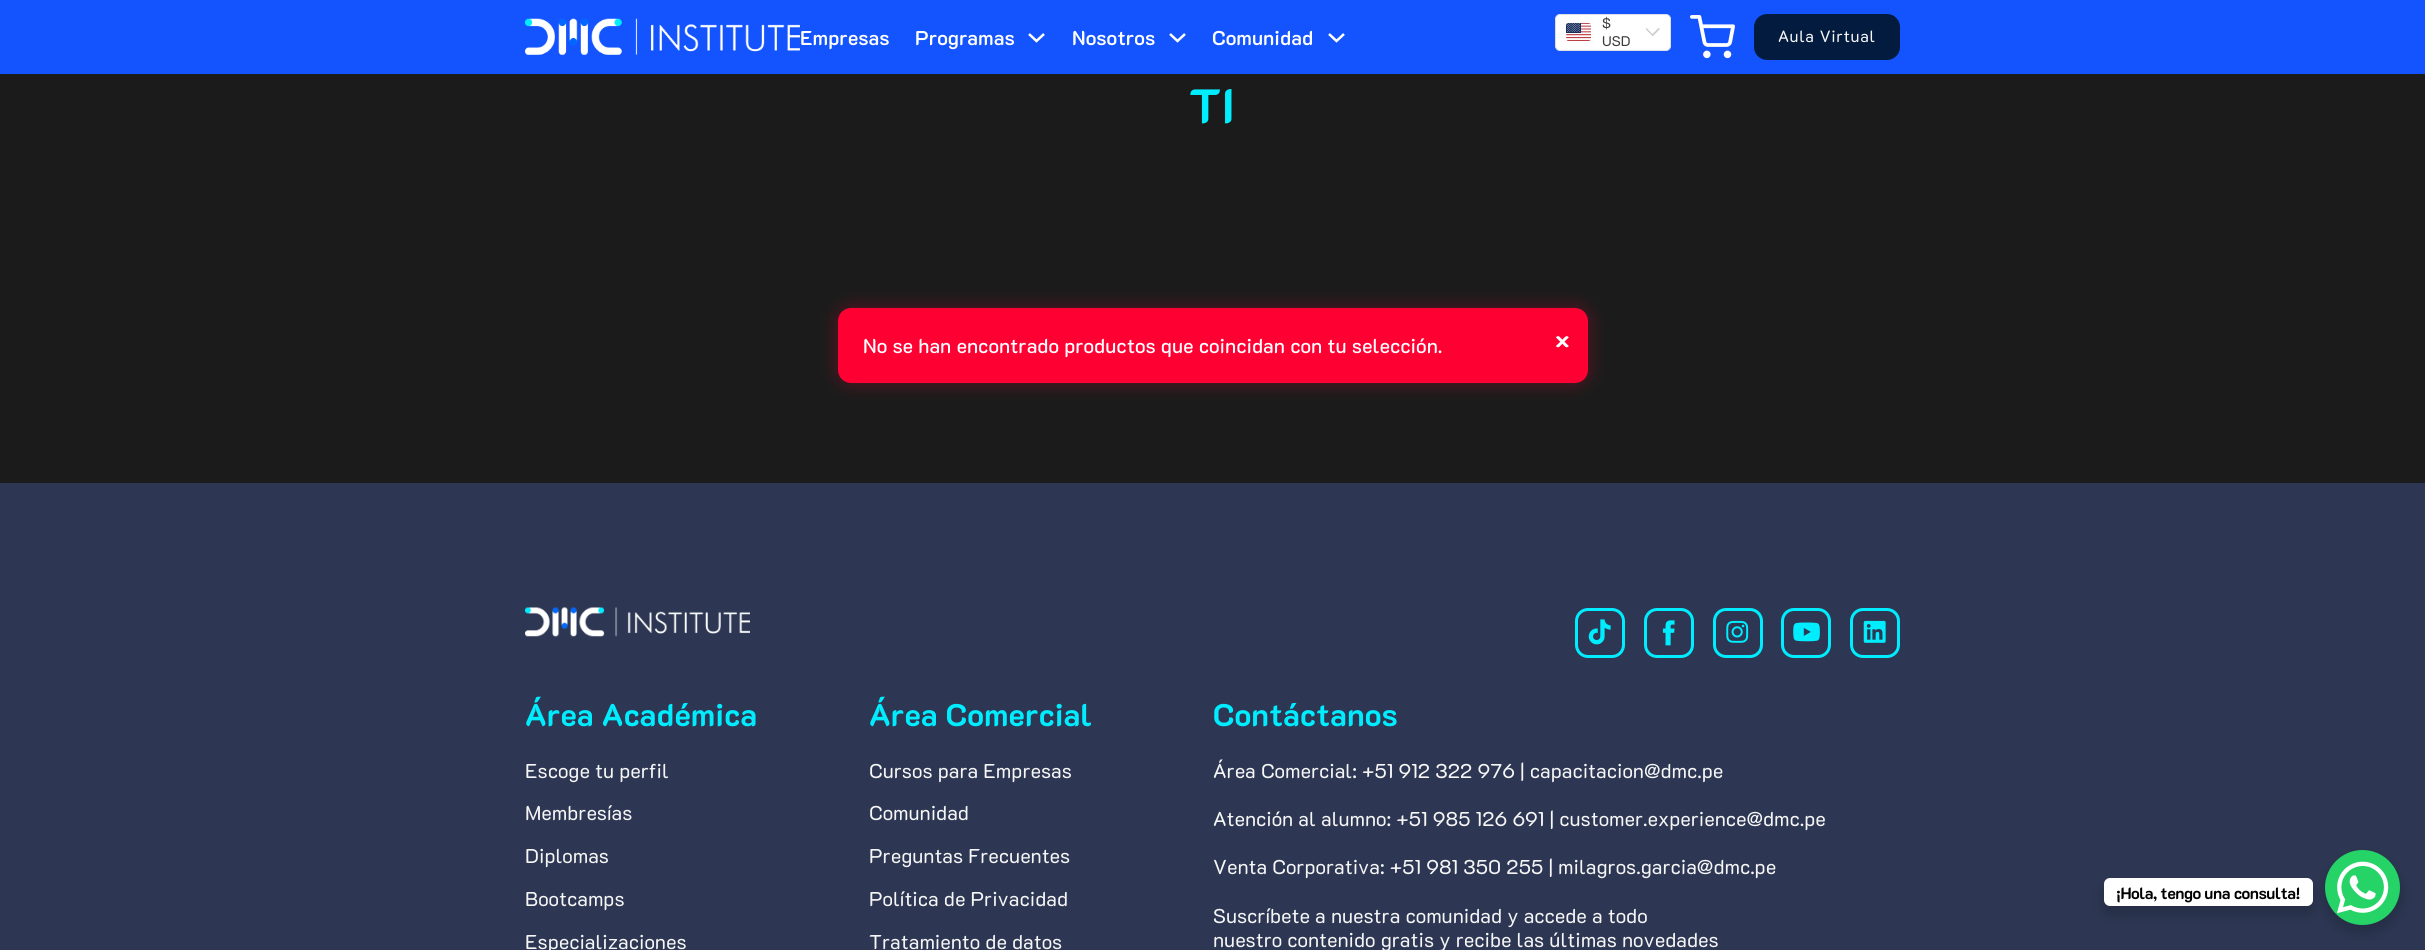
import math
import cairo

surface = cairo.ImageSurface(cairo.FORMAT_RGB24, 2425, 950)
ctx = cairo.Context(surface)
options = cairo.FontOptions()
options.set_hint_metrics(cairo.HINT_METRICS_OFF)
options.set_hint_style(cairo.HINT_STYLE_NONE)
ctx.set_font_options(options)
ctx.set_miter_limit(4)


def spaced_text(x, y, s, letter, word):
    ctx.move_to(x, y)
    for ch in s:
        ctx.show_text(ch)
        ctx.rel_move_to(letter + word * (ch == ' '), 0)


def round_rect(x, y, w, h, r):
    ctx.new_sub_path()
    for i, (u, v) in enumerate([(x + w - r, y + h - r), (x + r, y + h - r), (x + r, y + r), (x + w - r, y + r)]):
        ctx.arc(u, v, r, i * math.pi / 2, (i + 1) * math.pi / 2)
    ctx.close_path()


def shadow(x, y, w, h, r, blur, alpha):
    ctx.push_group_with_content(cairo.CONTENT_ALPHA)
    ctx.set_operator(cairo.OPERATOR_SOURCE)
    for i in range(15, -16, -2):
        e = blur * i / 6
        if min(w, h) + 2 * e > 0:
            ctx.set_source_rgba(0, 0, 0, alpha * math.erfc((i - 1) / 8.5) / 2)
            round_rect(x - e, y - e, w + 2 * e, h + 2 * e, max(0, min(r + e + blur * .6, min(w, h) / 2 + e)))
            ctx.fill()
    ctx.mask(ctx.pop_group())


def picture(path, x, y, w, h):
    ctx.save()
    ctx.set_source_surface(cairo.ImageSurface.create_from_png(path), x, y)
    ctx.rectangle(x, y, w, h)
    ctx.fill()
    ctx.restore()


ctx.set_source_rgb(0.106, 0.106, 0.106)
ctx.paint()
ctx.set_source_rgb(0.075, 0.329, 1)
ctx.rectangle(0, 0, 2425, 74)
ctx.fill()
picture("img1.png", 525, 18, 275, 37)
ctx.select_font_face("K2D SemiBold")
ctx.set_font_size(20)
ctx.set_source_rgb(1, 1, 1)
ctx.move_to(800, 45)
ctx.show_text("Empresas")
ctx.move_to(915, 45)
ctx.show_text("Programas")
ctx.new_path()
ctx.move_to(1029, 34)
ctx.line_to(1036.5, 41)
ctx.line_to(1044, 34)
ctx.set_line_width(2.5)
ctx.stroke()
ctx.move_to(1072, 45)
ctx.show_text("Nosotros")
ctx.new_path()
ctx.move_to(1170, 34)
ctx.line_to(1177.5, 41)
ctx.line_to(1185, 34)
ctx.stroke()
ctx.move_to(1212, 45)
ctx.show_text("Comunidad")
ctx.new_path()
ctx.move_to(1329, 34)
ctx.line_to(1336.5, 41)
ctx.line_to(1344, 34)
ctx.stroke()
round_rect(1555.5, 14.5, 115, 36, 4.5)
ctx.fill_preserve()
ctx.set_source_rgb(0.863, 0.875, 0.902)
ctx.set_line_width(1)
ctx.stroke()
picture("img2.png", 1566, 23, 25, 18)
ctx.select_font_face("K2D")
ctx.set_font_size(14)
ctx.set_source_rgb(0.231, 0.231, 0.231)
ctx.move_to(1602, 28)
ctx.show_text("$")
ctx.move_to(1602, 46)
ctx.show_text("USD")
ctx.set_source_rgb(0.8, 0.8, 0.8)
ctx.new_path()
ctx.move_to(1645.5, 29)
ctx.line_to(1646.5, 28)
ctx.line_to(1653.5, 35)
ctx.line_to(1652.5, 36)
ctx.close_path()
ctx.fill()
ctx.new_path()
ctx.move_to(1658.5, 28)
ctx.line_to(1660, 29)
ctx.line_to(1653, 36)
ctx.line_to(1651.5, 35)
ctx.close_path()
ctx.fill()
picture("img3.png", 1690, 15, 45, 44)
ctx.set_source_rgb(0.012, 0.106, 0.247)
round_rect(1754, 14, 146, 46, 13)
ctx.fill()
ctx.set_font_size(16.25)
ctx.set_source_rgb(0.961, 0.961, 0.961)
spaced_text(1778, 42, "Aula Virtual", 0.6, 0)
ctx.select_font_face("K2D", cairo.FONT_SLANT_NORMAL, cairo.FONT_WEIGHT_BOLD)
ctx.set_font_size(48)
ctx.set_source_rgb(0, 0.929, 1)
ctx.move_to(1189, 123)
ctx.show_text("TI")
ctx.set_source_rgb(1, 0, 0.2)
shadow(838, 308, 750, 75, 13, 9.5, 0.3)
ctx.set_source_rgb(1, 0, 0.2)
round_rect(838, 308, 750, 75, 13)
ctx.fill()
ctx.select_font_face("K2D Medium")
ctx.set_font_size(20)
ctx.set_source_rgb(1, 1, 1)
ctx.move_to(863, 353)
ctx.show_text("No se han encontrado productos que coincidan con tu selección.")
ctx.select_font_face("K2D", cairo.FONT_SLANT_NORMAL, cairo.FONT_WEIGHT_BOLD)
ctx.set_font_size(25)
ctx.move_to(1555, 349)
ctx.show_text("×")
ctx.set_source_rgb(0.176, 0.216, 0.325)
ctx.rectangle(0, 483, 2425, 467)
ctx.fill()
picture("img4.png", 525, 607, 225, 30)
round_rect(1576.5, 609.5, 47, 47, 11.5)
ctx.set_source_rgb(0, 0.929, 1)
ctx.set_line_width(3)
ctx.stroke()
picture("img5.png", 1588, 619, 23, 26)
round_rect(1645.5, 609.5, 47, 47, 11.5)
ctx.stroke()
picture("img6.png", 1662, 620, 13, 26)
round_rect(1714.5, 609.5, 47, 47, 11.5)
ctx.stroke()
picture("img7.png", 1726, 620, 23, 23)
round_rect(1782.5, 609.5, 47, 47, 11.5)
ctx.stroke()
picture("img8.png", 1793, 622, 27, 20)
round_rect(1851.5, 609.5, 47, 47, 11.5)
ctx.stroke()
picture("img9.png", 1863, 620, 23, 23)
ctx.set_font_size(31.25)
ctx.move_to(525, 726)
ctx.show_text("Área Académica")
ctx.select_font_face("K2D")
ctx.set_font_size(20)
ctx.set_source_rgb(0.961, 0.961, 0.961)
ctx.move_to(525, 778)
ctx.show_text("Escoge tu perfil")
ctx.move_to(525, 820)
ctx.show_text("Membresías")
ctx.move_to(525, 863)
ctx.show_text("Diplomas")
ctx.move_to(525, 906)
ctx.show_text("Bootcamps")
ctx.move_to(525, 949)
ctx.show_text("Especializaciones")
ctx.select_font_face("K2D", cairo.FONT_SLANT_NORMAL, cairo.FONT_WEIGHT_BOLD)
ctx.set_font_size(31.25)
ctx.set_source_rgb(0, 0.929, 1)
ctx.move_to(869, 726)
ctx.show_text("Área Comercial")
ctx.select_font_face("K2D")
ctx.set_font_size(20)
ctx.set_source_rgb(0.961, 0.961, 0.961)
ctx.move_to(869, 778)
ctx.show_text("Cursos para Empresas")
ctx.move_to(869, 820)
ctx.show_text("Comunidad")
ctx.move_to(869, 863)
ctx.show_text("Preguntas Frecuentes")
ctx.move_to(869, 906)
ctx.show_text("Política de Privacidad")
ctx.move_to(869, 949)
ctx.show_text("Tratamiento de datos")
ctx.select_font_face("K2D", cairo.FONT_SLANT_NORMAL, cairo.FONT_WEIGHT_BOLD)
ctx.set_font_size(31.25)
ctx.set_source_rgb(0, 0.929, 1)
ctx.move_to(1213, 726)
ctx.show_text("Contáctanos")
ctx.select_font_face("K2D")
ctx.set_font_size(20)
ctx.set_source_rgb(0.961, 0.961, 0.961)
ctx.move_to(1213, 778)
ctx.show_text("Área Comercial: +51 912 322 976 | capacitacion@dmc.pe")
ctx.move_to(1213, 826)
ctx.show_text("Atención al alumno: +51 985 126 691 | customer.experience@dmc.pe")
ctx.move_to(1213, 874)
ctx.show_text("Venta Corporativa: +51 981 350 255 | milagros.garcia@dmc.pe")
ctx.move_to(1213, 923)
ctx.show_text("Suscríbete a nuestra comunidad y accede a todo")
ctx.move_to(1213, 947)
ctx.show_text("nuestro contenido gratis y recibe las últimas novedades")
ctx.set_source_rgb(0, 0, 0)
shadow(2323, 855, 80, 80, 40, 5, 0.15)
ctx.set_source_rgb(0.145, 0.827, 0.4)
ctx.arc(2362.5, 887.5, 37.5, 0, 2 * math.pi)
ctx.fill()
ctx.set_source_rgb(0, 0, 0)
shadow(2101, 883, 214, 33, 9, 5, 0.15)
ctx.set_source_rgb(1, 1, 1)
round_rect(2104, 878, 209, 28, 6)
ctx.fill()
ctx.select_font_face("K2D", cairo.FONT_SLANT_NORMAL, cairo.FONT_WEIGHT_BOLD)
ctx.set_font_size(16.25)
ctx.set_source_rgb(0, 0, 0)
spaced_text(2116, 899, "¡Hola, tengo una consulta!", -0.5, 0)
picture("img10.png", 2337, 861, 52, 53)
surface.write_to_png("page.png")
